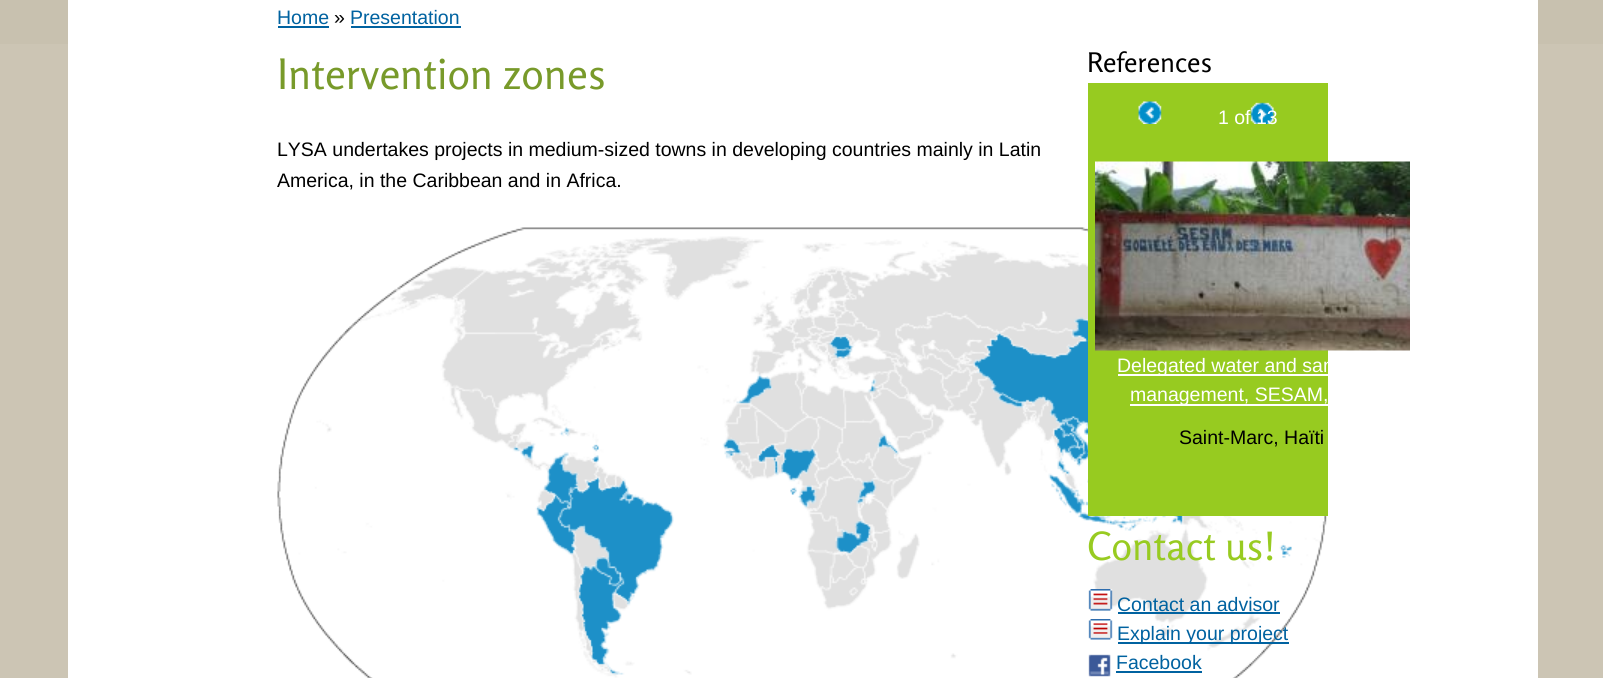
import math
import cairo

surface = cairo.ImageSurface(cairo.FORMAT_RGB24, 1603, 678)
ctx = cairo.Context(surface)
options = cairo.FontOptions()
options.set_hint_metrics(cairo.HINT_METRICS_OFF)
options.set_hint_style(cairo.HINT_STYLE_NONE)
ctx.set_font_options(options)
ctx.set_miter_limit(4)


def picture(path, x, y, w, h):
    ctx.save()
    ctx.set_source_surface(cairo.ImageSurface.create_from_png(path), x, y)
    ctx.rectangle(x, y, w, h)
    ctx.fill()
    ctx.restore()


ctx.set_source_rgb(0.8, 0.773, 0.706)
ctx.paint()
ctx.set_source_rgb(0.784, 0.757, 0.686)
ctx.rectangle(0, 0, 1603, 44)
ctx.fill()
ctx.set_source_rgb(1, 1, 1)
ctx.rectangle(68, 0, 1470, 678)
ctx.fill()
ctx.select_font_face("Liberation Sans")
ctx.set_font_size(19.5)
ctx.set_source_rgb(0, 0.384, 0.627)
ctx.move_to(277, 24)
ctx.show_text("Home")
ctx.rectangle(278, 26, 51, 2)
ctx.fill()
ctx.set_source_rgb(0, 0, 0)
ctx.move_to(334, 24)
ctx.show_text("»")
ctx.set_source_rgb(0, 0.384, 0.627)
ctx.move_to(350, 24)
ctx.show_text("Presentation")
ctx.rectangle(351, 26, 110, 2)
ctx.fill()
ctx.select_font_face("Rosario")
ctx.set_font_size(42)
ctx.set_source_rgb(0.471, 0.604, 0.165)
ctx.move_to(277, 89)
ctx.show_text("Intervention zones")
ctx.select_font_face("Liberation Sans")
ctx.set_font_size(19.5)
ctx.set_source_rgb(0, 0, 0)
ctx.move_to(277, 156)
ctx.show_text("LYSA undertakes projects in medium-sized towns in developing countries mainly in Latin")
ctx.move_to(277, 187)
ctx.show_text("America, in the Caribbean and in Africa.")
picture("img1.png", 277, 227, 1050, 451)
ctx.select_font_face("Rosario")
ctx.set_font_size(27)
ctx.move_to(1087, 72)
ctx.show_text("References")
ctx.set_source_rgb(0.592, 0.796, 0.125)
ctx.rectangle(1088, 83, 240, 433)
ctx.fill()
picture("img2.png", 1138, 101, 24, 23)
picture("img3.png", 1250, 102, 24, 22)
ctx.select_font_face("Liberation Sans")
ctx.set_font_size(19.5)
ctx.set_source_rgb(1, 1, 1)
ctx.move_to(1218, 124)
ctx.show_text("1 of 13")
picture("img4.png", 1095, 161, 315, 190)
ctx.rectangle(1118, 374, 210, 2)
ctx.fill()
ctx.move_to(1117, 372)
ctx.show_text("Delegated water and san")
ctx.rectangle(1130, 404, 198, 2)
ctx.fill()
ctx.move_to(1130, 401)
ctx.show_text("management, SESAM,")
ctx.set_source_rgb(0, 0, 0)
ctx.move_to(1179, 444)
ctx.show_text("Saint-Marc, Haïti")
ctx.select_font_face("Rosario")
ctx.set_font_size(39)
ctx.set_source_rgb(0.596, 0.796, 0.129)
ctx.move_to(1087, 560)
ctx.show_text("Contact us!")
picture("img5.png", 1088, 589, 25, 22)
ctx.select_font_face("Liberation Sans")
ctx.set_font_size(19.5)
ctx.set_source_rgb(0, 0.384, 0.627)
ctx.move_to(1117, 611)
ctx.show_text("Contact an advisor")
ctx.rectangle(1118, 612, 162, 2)
ctx.fill()
picture("img6.png", 1088, 619, 25, 21)
ctx.rectangle(1118, 642, 171, 2)
ctx.fill()
ctx.move_to(1117, 640)
ctx.show_text("Explain your project")
picture("img7.png", 1088, 654, 23, 23)
ctx.move_to(1116, 669)
ctx.show_text("Facebook")
ctx.rectangle(1116, 671, 86, 2)
ctx.fill()
surface.write_to_png("page.png")
